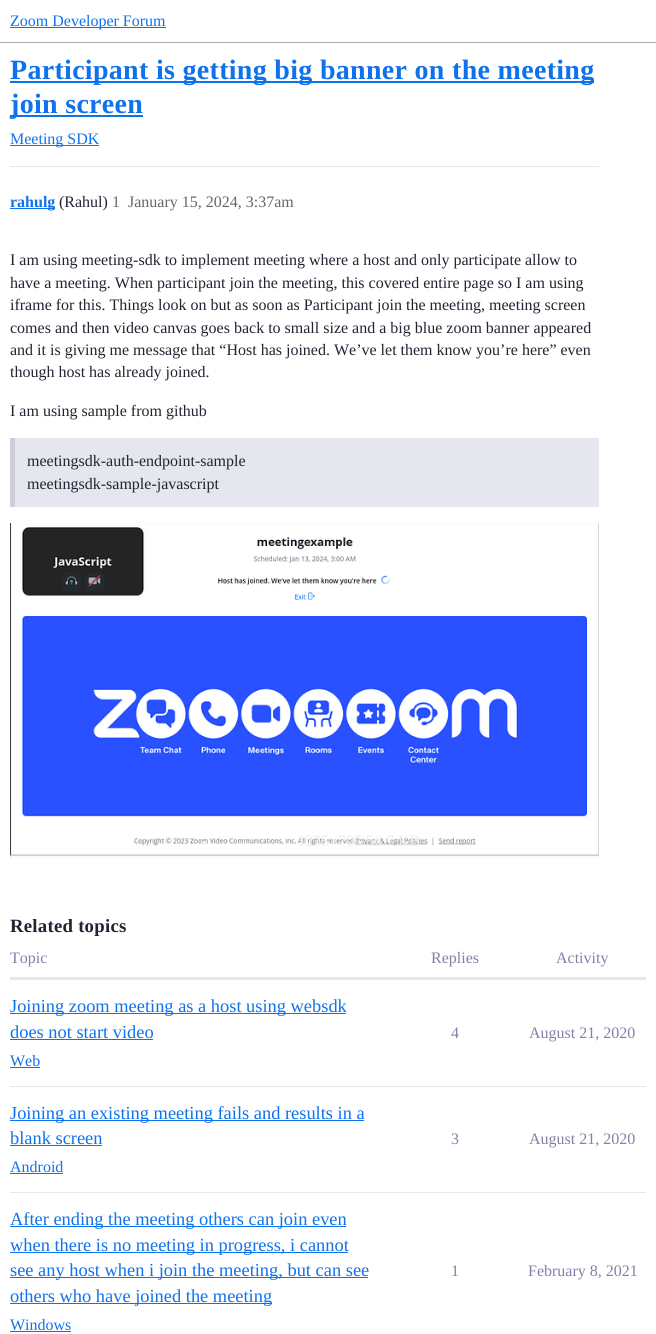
import math
import cairo

surface = cairo.ImageSurface(cairo.FORMAT_RGB24, 656, 1334)
ctx = cairo.Context(surface)
options = cairo.FontOptions()
options.set_hint_metrics(cairo.HINT_METRICS_OFF)
options.set_hint_style(cairo.HINT_STYLE_NONE)
ctx.set_font_options(options)
ctx.set_miter_limit(4)


def spaced_text(x, y, s, letter, word):
    ctx.move_to(x, y)
    for ch in s:
        ctx.show_text(ch)
        ctx.rel_move_to(letter + word * (ch == ' '), 0)


def picture(path, x, y, w, h):
    ctx.save()
    ctx.set_source_surface(cairo.ImageSurface.create_from_png(path), x, y)
    ctx.rectangle(x, y, w, h)
    ctx.fill()
    ctx.restore()


ctx.set_source_rgb(1, 1, 1)
ctx.paint()
ctx.set_source_rgb(0.686, 0.686, 0.686)
ctx.rectangle(0, 42, 656, 1)
ctx.fill()
ctx.set_source_rgb(0.055, 0.447, 0.929)
ctx.rectangle(10, 27, 156, 1)
ctx.fill()
ctx.select_font_face("Liberation Serif")
ctx.set_font_size(16)
ctx.move_to(10, 26)
ctx.show_text("Zoom Developer Forum")
ctx.rectangle(10, 81, 584, 2)
ctx.fill()
ctx.select_font_face("Liberation Serif", cairo.FONT_SLANT_NORMAL, cairo.FONT_WEIGHT_BOLD)
ctx.set_font_size(28)
spaced_text(10, 79, "Participant is getting big banner on the meeting", 0.3, 0)
ctx.rectangle(10, 115, 133, 2)
ctx.fill()
spaced_text(10, 113, "join screen", 0.3, 0)
ctx.rectangle(10, 145, 89, 1)
ctx.fill()
ctx.select_font_face("Liberation Serif")
ctx.set_font_size(16)
ctx.move_to(10, 144)
ctx.show_text("Meeting SDK")
ctx.set_source_rgb(0.902, 0.902, 0.933)
ctx.rectangle(10, 166, 589, 1)
ctx.fill()
ctx.set_source_rgb(0.055, 0.447, 0.929)
ctx.rectangle(10, 208, 45, 1)
ctx.fill()
ctx.select_font_face("Liberation Serif", cairo.FONT_SLANT_NORMAL, cairo.FONT_WEIGHT_BOLD)
ctx.move_to(10, 207)
ctx.show_text("rahulg")
ctx.select_font_face("Liberation Serif")
ctx.set_source_rgb(0.137, 0.137, 0.2)
ctx.move_to(59, 207)
ctx.show_text("(Rahul)")
ctx.set_source_rgb(0.4, 0.4, 0.4)
ctx.move_to(112, 207)
ctx.show_text("1")
ctx.move_to(128, 207)
ctx.show_text("January 15, 2024, 3:37am")
ctx.set_source_rgb(0.137, 0.137, 0.2)
ctx.move_to(10, 265)
ctx.show_text("I am using meeting-sdk to implement meeting where a host and only participate allow to")
ctx.move_to(10, 288)
ctx.show_text("have a meeting. When participant join the meeting, this covered entire page so I am using")
ctx.move_to(10, 310)
ctx.show_text("iframe for this. Things look on but as soon as Participant join the meeting, meeting screen")
ctx.move_to(10, 333)
ctx.show_text("comes and then video canvas goes back to small size and a big blue zoom banner appeared")
ctx.move_to(10, 355)
ctx.show_text("and it is giving me message that “Host has joined. We’ve let them know you’re here” even")
ctx.move_to(10, 377)
ctx.show_text("though host has already joined.")
ctx.move_to(10, 416)
ctx.show_text("I am using sample from github")
ctx.set_source_rgb(0.902, 0.902, 0.933)
ctx.rectangle(15, 438, 584, 69)
ctx.fill()
ctx.set_source_rgb(0.804, 0.804, 0.863)
ctx.rectangle(10, 438, 5, 69)
ctx.fill()
ctx.set_source_rgb(0.137, 0.137, 0.2)
ctx.move_to(27, 466)
ctx.show_text("meetingsdk-auth-endpoint-sample")
ctx.move_to(27, 489)
ctx.show_text("meetingsdk-sample-javascript")
picture("img1.png", 10, 523, 589, 335)
ctx.set_source_rgb(0.961, 0.961, 0.965)
ctx.move_to(201, 846)
ctx.show_text("-")
ctx.set_source_rgb(0.925, 0.929, 0.933)
ctx.move_to(297, 846)
ctx.show_text("1235×705 56.7 KB")
ctx.select_font_face("Liberation Serif", cairo.FONT_SLANT_NORMAL, cairo.FONT_WEIGHT_BOLD)
ctx.set_font_size(18.75)
ctx.set_source_rgb(0.137, 0.137, 0.2)
spaced_text(10, 932, "Related topics", 0.25, 0)
ctx.select_font_face("Liberation Serif")
ctx.set_font_size(16)
ctx.set_source_rgb(0.506, 0.506, 0.663)
ctx.move_to(10, 963)
ctx.show_text("Topic")
ctx.move_to(431, 963)
ctx.show_text("Replies")
ctx.move_to(556, 963)
ctx.show_text("Activity")
ctx.set_source_rgb(0.902, 0.902, 0.933)
ctx.rectangle(10, 977, 636, 3)
ctx.fill()
ctx.rectangle(10, 1086, 636, 1)
ctx.fill()
ctx.set_source_rgb(0.055, 0.447, 0.929)
ctx.rectangle(10, 1013, 336, 1)
ctx.fill()
ctx.set_font_size(18.4)
ctx.move_to(10, 1012)
ctx.show_text("Joining zoom meeting as a host using websdk")
ctx.move_to(10, 1038)
ctx.show_text("does not start video")
ctx.rectangle(10, 1039, 143, 1)
ctx.fill()
ctx.set_font_size(16)
ctx.move_to(10, 1066)
ctx.show_text("Web")
ctx.rectangle(10, 1067, 30, 1)
ctx.fill()
ctx.set_source_rgb(0.506, 0.506, 0.663)
ctx.move_to(451, 1038)
ctx.show_text("4")
ctx.move_to(529, 1038)
ctx.show_text("August 21, 2020")
ctx.set_source_rgb(0.902, 0.902, 0.933)
ctx.rectangle(10, 1192, 636, 1)
ctx.fill()
ctx.set_source_rgb(0.055, 0.447, 0.929)
ctx.rectangle(10, 1120, 354, 1)
ctx.fill()
ctx.set_font_size(18.4)
ctx.move_to(10, 1119)
ctx.show_text("Joining an existing meeting fails and results in a")
ctx.move_to(10, 1144)
ctx.show_text("blank screen")
ctx.rectangle(10, 1145, 92, 1)
ctx.fill()
ctx.set_font_size(16)
ctx.move_to(10, 1172)
ctx.show_text("Android")
ctx.rectangle(10, 1173, 53, 1)
ctx.fill()
ctx.set_source_rgb(0.506, 0.506, 0.663)
ctx.move_to(451, 1144)
ctx.show_text("3")
ctx.move_to(529, 1144)
ctx.show_text("August 21, 2020")
ctx.set_source_rgb(0.055, 0.447, 0.929)
ctx.rectangle(10, 1226, 336, 1)
ctx.fill()
ctx.set_font_size(18.4)
ctx.move_to(10, 1225)
ctx.show_text("After ending the meeting others can join even")
ctx.rectangle(10, 1252, 338, 1)
ctx.fill()
ctx.move_to(10, 1251)
ctx.show_text("when there is no meeting in progress, i cannot")
ctx.rectangle(10, 1277, 358, 1)
ctx.fill()
ctx.move_to(10, 1276)
ctx.show_text("see any host when i join the meeting, but can see")
ctx.rectangle(10, 1303, 262, 1)
ctx.fill()
ctx.move_to(10, 1302)
ctx.show_text("others who have joined the meeting")
ctx.set_font_size(16)
ctx.move_to(10, 1330)
ctx.show_text("Windows")
ctx.rectangle(10, 1331, 61, 1)
ctx.fill()
ctx.set_source_rgb(0.506, 0.506, 0.663)
ctx.move_to(451, 1276)
ctx.show_text("1")
ctx.move_to(528, 1276)
ctx.show_text("February 8, 2021")
surface.write_to_png("page.png")
